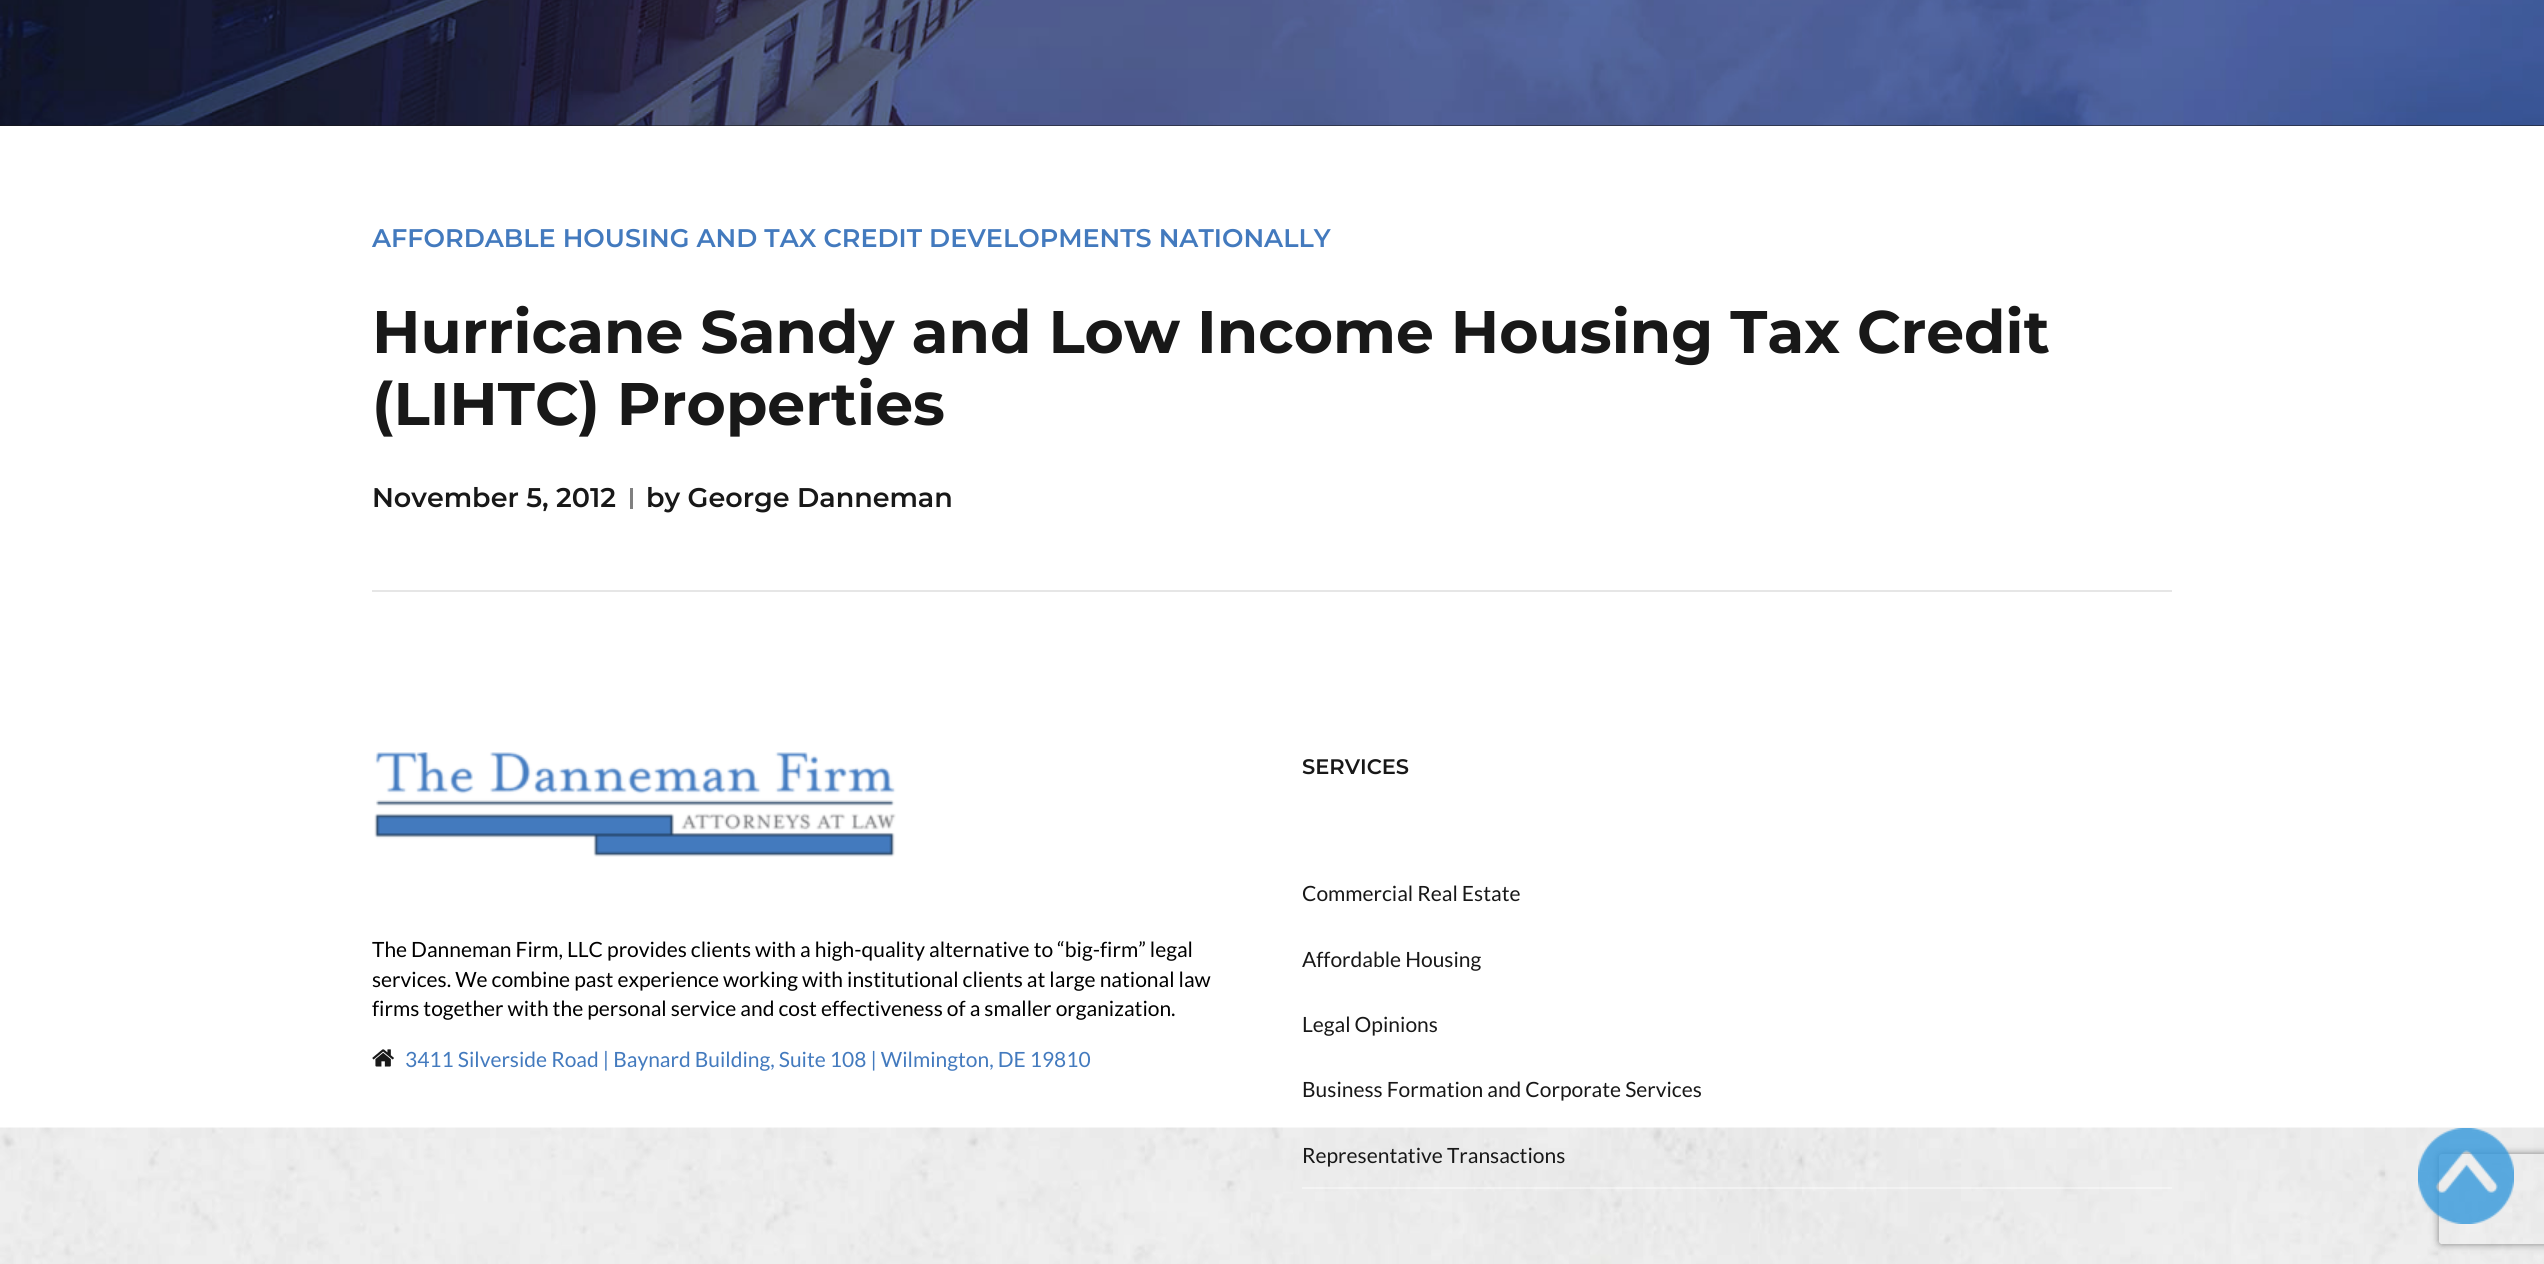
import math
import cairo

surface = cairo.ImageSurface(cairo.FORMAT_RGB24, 2544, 1264)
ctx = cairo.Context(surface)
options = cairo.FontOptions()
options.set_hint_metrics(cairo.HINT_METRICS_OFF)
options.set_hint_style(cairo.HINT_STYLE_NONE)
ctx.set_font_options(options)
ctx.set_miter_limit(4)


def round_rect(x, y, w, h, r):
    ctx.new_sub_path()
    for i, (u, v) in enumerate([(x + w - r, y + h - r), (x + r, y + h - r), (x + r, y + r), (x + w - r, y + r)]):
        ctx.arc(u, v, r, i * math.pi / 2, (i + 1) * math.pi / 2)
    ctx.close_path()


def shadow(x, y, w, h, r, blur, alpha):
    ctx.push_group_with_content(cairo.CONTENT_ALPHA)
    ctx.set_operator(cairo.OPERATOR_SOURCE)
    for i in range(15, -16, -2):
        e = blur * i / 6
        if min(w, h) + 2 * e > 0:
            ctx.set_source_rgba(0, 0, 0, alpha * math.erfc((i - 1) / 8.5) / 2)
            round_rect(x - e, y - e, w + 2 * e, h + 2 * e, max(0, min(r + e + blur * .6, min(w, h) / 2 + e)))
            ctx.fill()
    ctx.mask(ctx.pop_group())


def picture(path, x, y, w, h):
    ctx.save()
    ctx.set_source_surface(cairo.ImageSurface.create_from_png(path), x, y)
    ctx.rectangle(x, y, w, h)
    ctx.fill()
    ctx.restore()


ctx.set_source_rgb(1, 1, 1)
ctx.paint()
ctx.set_source_rgb(0.098, 0.098, 0.098)
ctx.rectangle(0, 125, 2544, 1)
ctx.fill()
picture("img1.png", 0, 0, 2544, 126)
ctx.set_source_rgb(0.902, 0.902, 0.902)
ctx.rectangle(372, 590, 1800, 2)
ctx.fill()
ctx.select_font_face("Montserrat SemiBold")
ctx.set_font_size(25.5)
ctx.set_source_rgb(0.263, 0.478, 0.745)
ctx.move_to(372, 247)
ctx.show_text("AFFORDABLE HOUSING AND TAX CREDIT DEVELOPMENTS NATIONALLY")
ctx.select_font_face("Montserrat", cairo.FONT_SLANT_NORMAL, cairo.FONT_WEIGHT_BOLD)
ctx.set_font_size(60)
ctx.set_source_rgb(0.094, 0.094, 0.094)
ctx.move_to(372, 353)
ctx.show_text("Hurricane Sandy and Low Income Housing Tax Credit")
ctx.move_to(372, 425)
ctx.show_text("(LIHTC) Properties")
ctx.select_font_face("Montserrat SemiBold")
ctx.set_font_size(27)
ctx.move_to(372, 507)
ctx.show_text("November 5, 2012")
ctx.set_source_rgb(0.502, 0.502, 0.502)
ctx.rectangle(630, 488, 3, 21)
ctx.fill()
ctx.set_source_rgb(0.094, 0.094, 0.094)
ctx.move_to(646, 507)
ctx.show_text("by George Danneman")
picture("img2.png", 0, 1127, 2544, 137)
picture("img3.png", 374, 752, 522, 105)
ctx.select_font_face("Lato")
ctx.set_font_size(21)
ctx.set_source_rgb(0, 0, 0)
ctx.move_to(372, 957)
ctx.show_text("The Danneman Firm, LLC provides clients with a high-quality alternative to “big-firm” legal")
ctx.move_to(372, 987)
ctx.show_text("services. We combine past experience working with institutional clients at large national law")
ctx.move_to(372, 1016)
ctx.show_text("firms together with the personal service and cost effectiveness of a smaller organization.")
picture("img4.png", 372, 1049, 22, 18)
ctx.set_source_rgb(0.263, 0.478, 0.745)
ctx.move_to(405, 1067)
ctx.show_text("3411 Silverside Road | Baynard Building, Suite 108 | Wilmington, DE 19810")
ctx.select_font_face("Montserrat SemiBold")
ctx.set_source_rgb(0.094, 0.094, 0.094)
ctx.move_to(1302, 774)
ctx.show_text("SERVICES")
ctx.select_font_face("Lato")
ctx.move_to(1302, 901)
ctx.show_text("Commercial Real Estate")
ctx.move_to(1302, 967)
ctx.show_text("Affordable Housing")
ctx.move_to(1302, 1032)
ctx.show_text("Legal Opinions")
ctx.move_to(1302, 1097)
ctx.show_text("Business Formation and Corporate Services")
ctx.set_source_rgba(1, 1, 1, 0.4)
ctx.rectangle(1302, 1187, 870, 2)
ctx.fill()
ctx.set_source_rgb(0.094, 0.094, 0.094)
ctx.move_to(1302, 1163)
ctx.show_text("Representative Transactions")
ctx.save()
ctx.set_fill_rule(cairo.FILL_RULE_EVEN_ODD)
ctx.new_path()
ctx.move_to(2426, 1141)
ctx.line_to(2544, 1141)
ctx.line_to(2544, 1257)
ctx.line_to(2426, 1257)
ctx.close_path()
ctx.move_to(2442, 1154)
ctx.line_to(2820, 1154)
ctx.curve_to(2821.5, 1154, 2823, 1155.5, 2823, 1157)
ctx.line_to(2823, 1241)
ctx.curve_to(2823, 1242.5, 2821.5, 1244, 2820, 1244)
ctx.line_to(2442, 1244)
ctx.curve_to(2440.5, 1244, 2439, 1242.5, 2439, 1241)
ctx.line_to(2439, 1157)
ctx.curve_to(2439, 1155.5, 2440.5, 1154, 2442, 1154)
ctx.close_path()
ctx.clip()
ctx.set_source_rgb(0.502, 0.502, 0.502)
shadow(2439, 1154, 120, 90, 3, 4, 1)
ctx.restore()
picture("img5.png", 2418, 1128, 96, 96)
surface.write_to_png("page.png")
